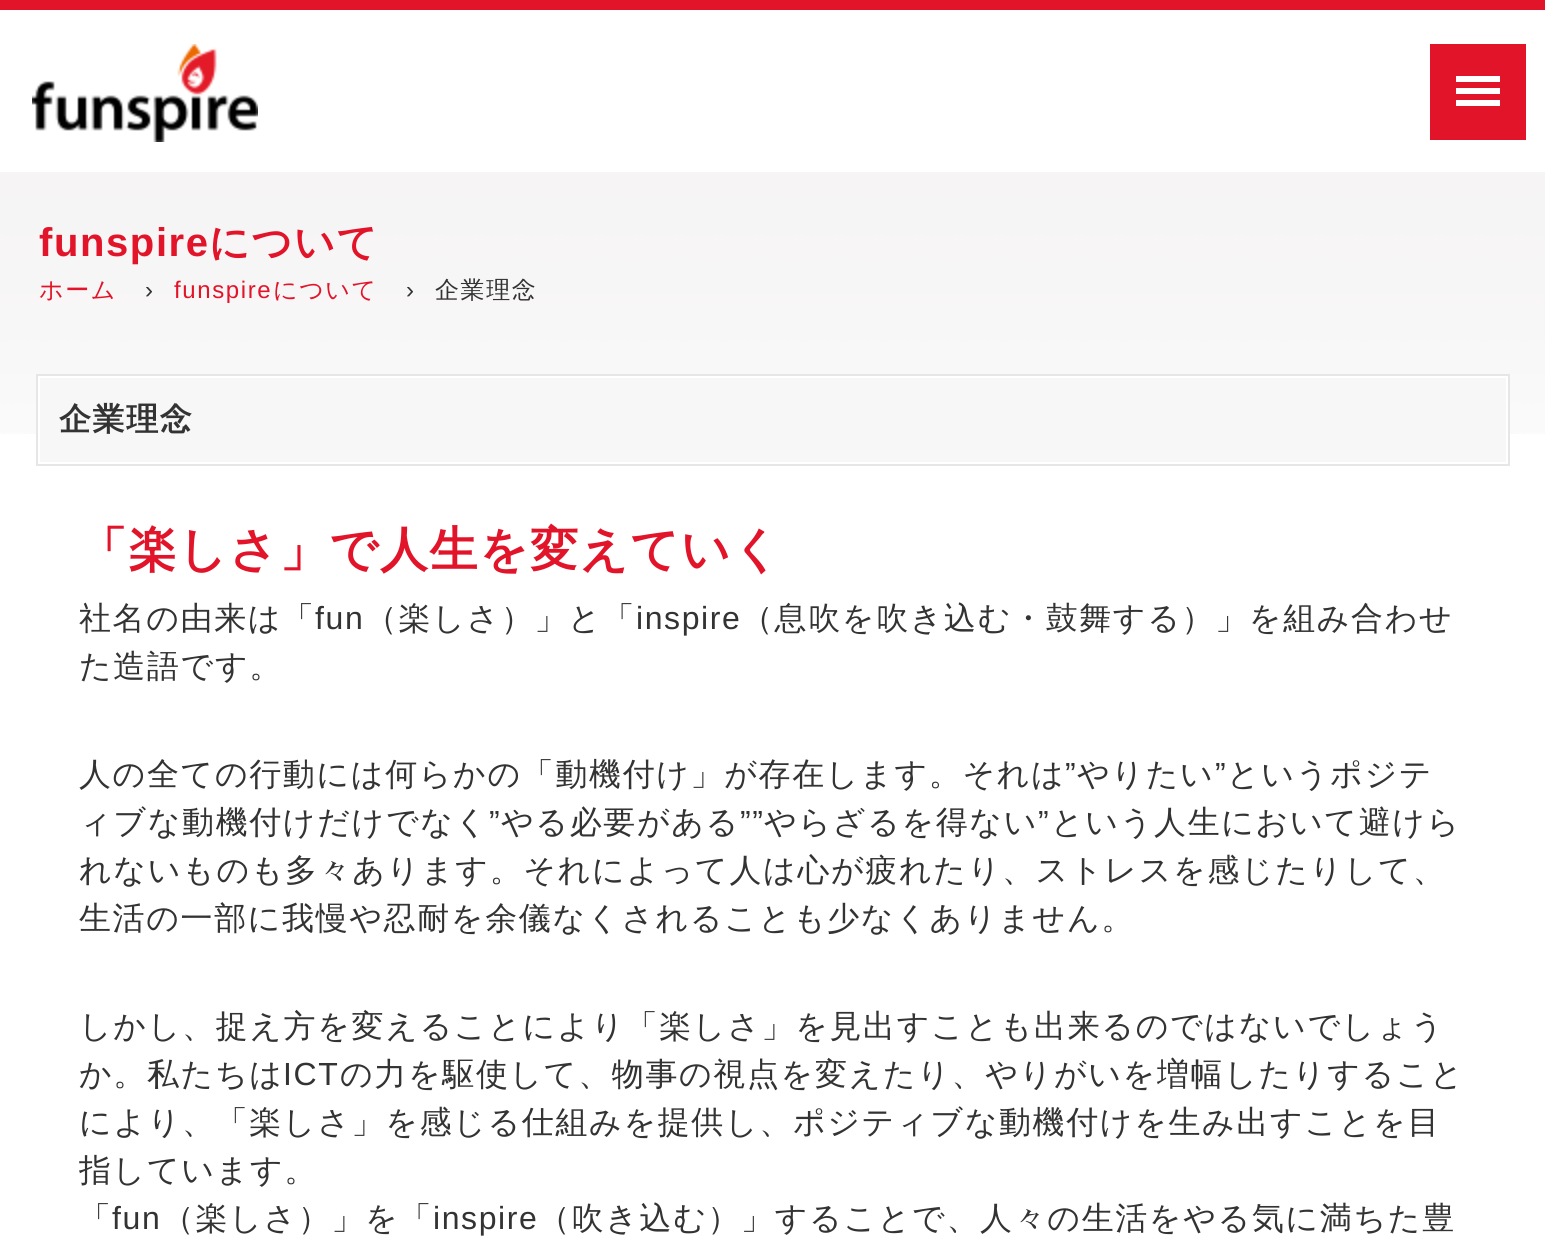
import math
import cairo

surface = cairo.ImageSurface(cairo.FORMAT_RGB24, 1545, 1246)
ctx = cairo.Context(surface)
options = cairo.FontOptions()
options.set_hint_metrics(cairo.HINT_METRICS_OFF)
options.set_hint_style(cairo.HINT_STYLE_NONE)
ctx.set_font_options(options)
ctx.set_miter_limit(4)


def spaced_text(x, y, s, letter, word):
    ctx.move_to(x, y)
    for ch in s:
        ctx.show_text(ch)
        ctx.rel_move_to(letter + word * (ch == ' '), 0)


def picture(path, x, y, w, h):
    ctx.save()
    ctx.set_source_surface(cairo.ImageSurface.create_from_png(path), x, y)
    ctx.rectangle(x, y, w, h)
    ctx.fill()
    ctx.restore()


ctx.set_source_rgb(1, 1, 1)
ctx.paint()
picture("img1.png", 0, 172, 1545, 262)
ctx.set_source_rgb(0.886, 0.082, 0.161)
ctx.rectangle(0, 0, 1545, 10)
ctx.fill()
picture("img2.png", 32, 44, 226, 98)
ctx.rectangle(1430, 44, 96, 96)
ctx.fill()
ctx.set_source_rgb(1, 1, 1)
ctx.rectangle(1456, 76, 44, 6)
ctx.fill()
ctx.rectangle(1456, 88, 44, 6)
ctx.fill()
ctx.rectangle(1456, 100, 44, 6)
ctx.fill()
ctx.select_font_face("Liberation Sans", cairo.FONT_SLANT_NORMAL, cairo.FONT_WEIGHT_BOLD)
ctx.set_font_size(40)
ctx.set_source_rgb(0.886, 0.082, 0.161)
spaced_text(39, 256, "funspire", 1.6, 0)
ctx.select_font_face("WenQuanYi Zen Hei", cairo.FONT_SLANT_NORMAL, cairo.FONT_WEIGHT_BOLD)
spaced_text(209, 256, "について", 1.6, 0)
ctx.select_font_face("WenQuanYi Zen Hei Medium")
ctx.set_font_size(24)
spaced_text(39, 298, "ホーム", 1.6, 0)
ctx.select_font_face("Liberation Sans")
ctx.set_source_rgb(0.2, 0.2, 0.2)
spaced_text(145, 298, "›", 1.6, 0)
ctx.set_source_rgb(0.886, 0.082, 0.161)
spaced_text(174, 298, "funspire", 1.6, 0)
ctx.select_font_face("WenQuanYi Zen Hei Medium")
spaced_text(273, 298, "について", 1.6, 0)
ctx.select_font_face("Liberation Sans")
ctx.set_source_rgb(0.2, 0.2, 0.2)
spaced_text(406, 298, "›", 1.6, 0)
ctx.select_font_face("WenQuanYi Zen Hei Medium")
spaced_text(435, 298, "企業理念", 1.6, 0)
ctx.set_source_rgb(0.969, 0.965, 0.965)
ctx.rectangle(39, 377, 1468, 86)
ctx.fill_preserve()
ctx.set_source_rgb(1, 1, 1)
ctx.stroke()
ctx.rectangle(37, 375, 1472, 90)
ctx.set_source_rgb(0.902, 0.902, 0.902)
ctx.stroke()
ctx.select_font_face("WenQuanYi Zen Hei", cairo.FONT_SLANT_NORMAL, cairo.FONT_WEIGHT_BOLD)
ctx.set_font_size(32)
ctx.set_source_rgb(0.2, 0.2, 0.2)
spaced_text(59, 430, "企業理念", 1.6, 0)
ctx.set_font_size(48)
ctx.set_source_rgb(0.886, 0.082, 0.161)
spaced_text(79, 566, "「楽しさ」で人生を変えていく", 1.6, 0)
ctx.select_font_face("WenQuanYi Zen Hei Medium")
ctx.set_font_size(32)
ctx.set_source_rgb(0.2, 0.2, 0.2)
spaced_text(79, 629, "社名の由来は「", 1.6, 0)
ctx.select_font_face("Liberation Sans")
spaced_text(315, 629, "fun", 1.6, 0)
ctx.select_font_face("WenQuanYi Zen Hei Medium")
spaced_text(365, 629, "（楽しさ）」と「", 1.6, 0)
ctx.select_font_face("Liberation Sans")
spaced_text(636, 629, "inspire", 1.6, 0)
ctx.select_font_face("WenQuanYi Zen Hei Medium")
spaced_text(741, 629, "（息吹を吹き込む・鼓舞する）」を組み合わせ", 1.6, 0)
spaced_text(79, 677, "た造語です。", 1.6, 0)
spaced_text(79, 785, "人の全ての行動には何らかの「動機付け」が存在します。それは", 1.6, 0)
ctx.select_font_face("Liberation Sans")
spaced_text(1065, 785, "”", 1.6, 0)
ctx.select_font_face("WenQuanYi Zen Hei Medium")
spaced_text(1077, 785, "やりたい", 1.6, 0)
ctx.select_font_face("Liberation Sans")
spaced_text(1215, 785, "”", 1.6, 0)
ctx.select_font_face("WenQuanYi Zen Hei Medium")
spaced_text(1227, 785, "というポジテ", 1.6, 0)
spaced_text(79, 833, "ィブな動機付けだけでなく", 1.6, 0)
ctx.select_font_face("Liberation Sans")
spaced_text(489, 833, "”", 1.6, 0)
ctx.select_font_face("WenQuanYi Zen Hei Medium")
spaced_text(501, 833, "やる必要がある", 1.6, 0)
ctx.select_font_face("Liberation Sans")
spaced_text(740, 833, "””", 1.6, 0)
ctx.select_font_face("WenQuanYi Zen Hei Medium")
spaced_text(764, 833, "やらざるを得ない", 1.6, 0)
ctx.select_font_face("Liberation Sans")
spaced_text(1038, 833, "”", 1.6, 0)
ctx.select_font_face("WenQuanYi Zen Hei Medium")
spaced_text(1051, 833, "という人生において避けら", 1.6, 0)
spaced_text(79, 881, "れないものも多々あります。それによって人は心が疲れたり、ストレスを感じたりして、", 1.6, 0)
spaced_text(79, 929, "生活の一部に我慢や忍耐を余儀なくされることも少なくありません。", 1.6, 0)
spaced_text(79, 1037, "しかし、捉え方を変えることにより「楽しさ」を見出すことも出来るのではないでしょう", 1.6, 0)
spaced_text(79, 1085, "か。私たちは", 1.6, 0)
ctx.select_font_face("Liberation Sans")
spaced_text(283, 1085, "ICT", 1.6, 0)
ctx.select_font_face("WenQuanYi Zen Hei Medium")
spaced_text(340, 1085, "の力を駆使して、物事の視点を変えたり、やりがいを増幅したりすること", 1.6, 0)
spaced_text(79, 1133, "により、「楽しさ」を感じる仕組みを提供し、ポジティブな動機付けを生み出すことを目", 1.6, 0)
spaced_text(79, 1181, "指しています。", 1.6, 0)
spaced_text(79, 1229, "「", 1.6, 0)
ctx.select_font_face("Liberation Sans")
spaced_text(112, 1229, "fun", 1.6, 0)
ctx.select_font_face("WenQuanYi Zen Hei Medium")
spaced_text(162, 1229, "（楽しさ）」を「", 1.6, 0)
ctx.select_font_face("Liberation Sans")
spaced_text(433, 1229, "inspire", 1.6, 0)
ctx.select_font_face("WenQuanYi Zen Hei Medium")
spaced_text(538, 1229, "（吹き込む）」することで、人々の生活をやる気に満ちた豊", 1.6, 0)
surface.write_to_png("page.png")
